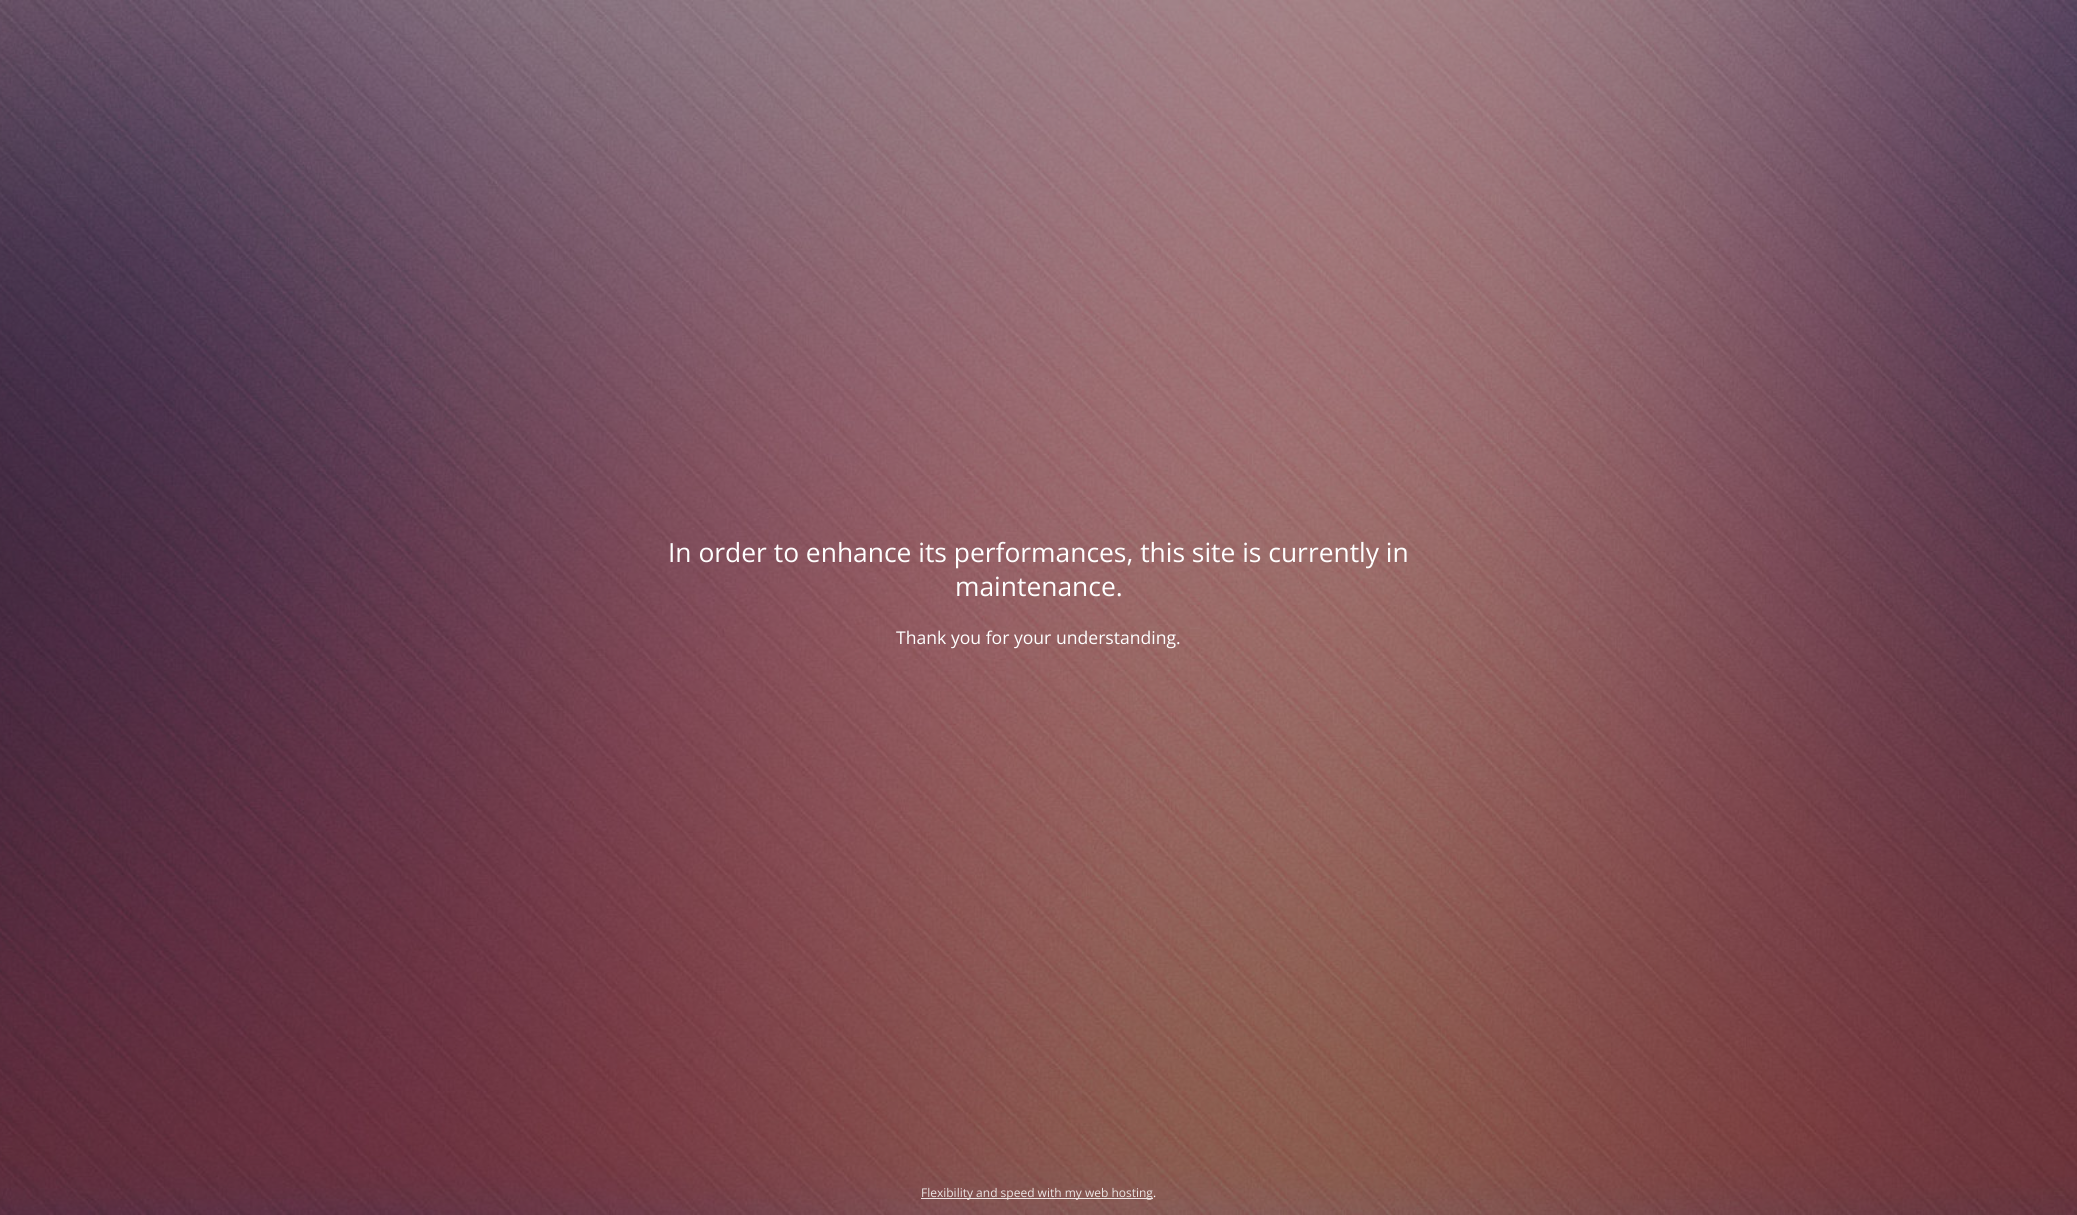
import math
import cairo

surface = cairo.ImageSurface(cairo.FORMAT_RGB24, 2077, 1215)
ctx = cairo.Context(surface)
options = cairo.FontOptions()
options.set_hint_metrics(cairo.HINT_METRICS_OFF)
options.set_hint_style(cairo.HINT_STYLE_NONE)
ctx.set_font_options(options)
ctx.set_miter_limit(4)


def picture(path, x, y, w, h):
    ctx.save()
    ctx.set_source_surface(cairo.ImageSurface.create_from_png(path), x, y)
    ctx.rectangle(x, y, w, h)
    ctx.fill()
    ctx.restore()


ctx.set_source_rgb(1, 1, 1)
ctx.paint()
picture("img1.png", 0, 0, 2077, 1215)
ctx.select_font_face("Open Sans")
ctx.set_font_size(26.4)
ctx.set_source_rgb(1, 1, 1)
ctx.move_to(668, 562)
ctx.show_text("In order to enhance its performances, this site is currently in")
ctx.move_to(955, 596)
ctx.show_text("maintenance.")
ctx.set_font_size(17.6)
ctx.move_to(896, 644)
ctx.show_text("Thank you for your understanding.")
ctx.set_source_rgba(1, 1, 1, 0.85)
ctx.rectangle(921, 1198, 232, 1)
ctx.fill()
ctx.set_font_size(12)
ctx.set_source_rgb(0.929, 0.902, 0.898)
ctx.move_to(921, 1197)
ctx.show_text("Flexibility and speed with my web hosting")
ctx.set_source_rgb(1, 1, 1)
ctx.move_to(1153, 1197)
ctx.show_text(".")
surface.write_to_png("page.png")
